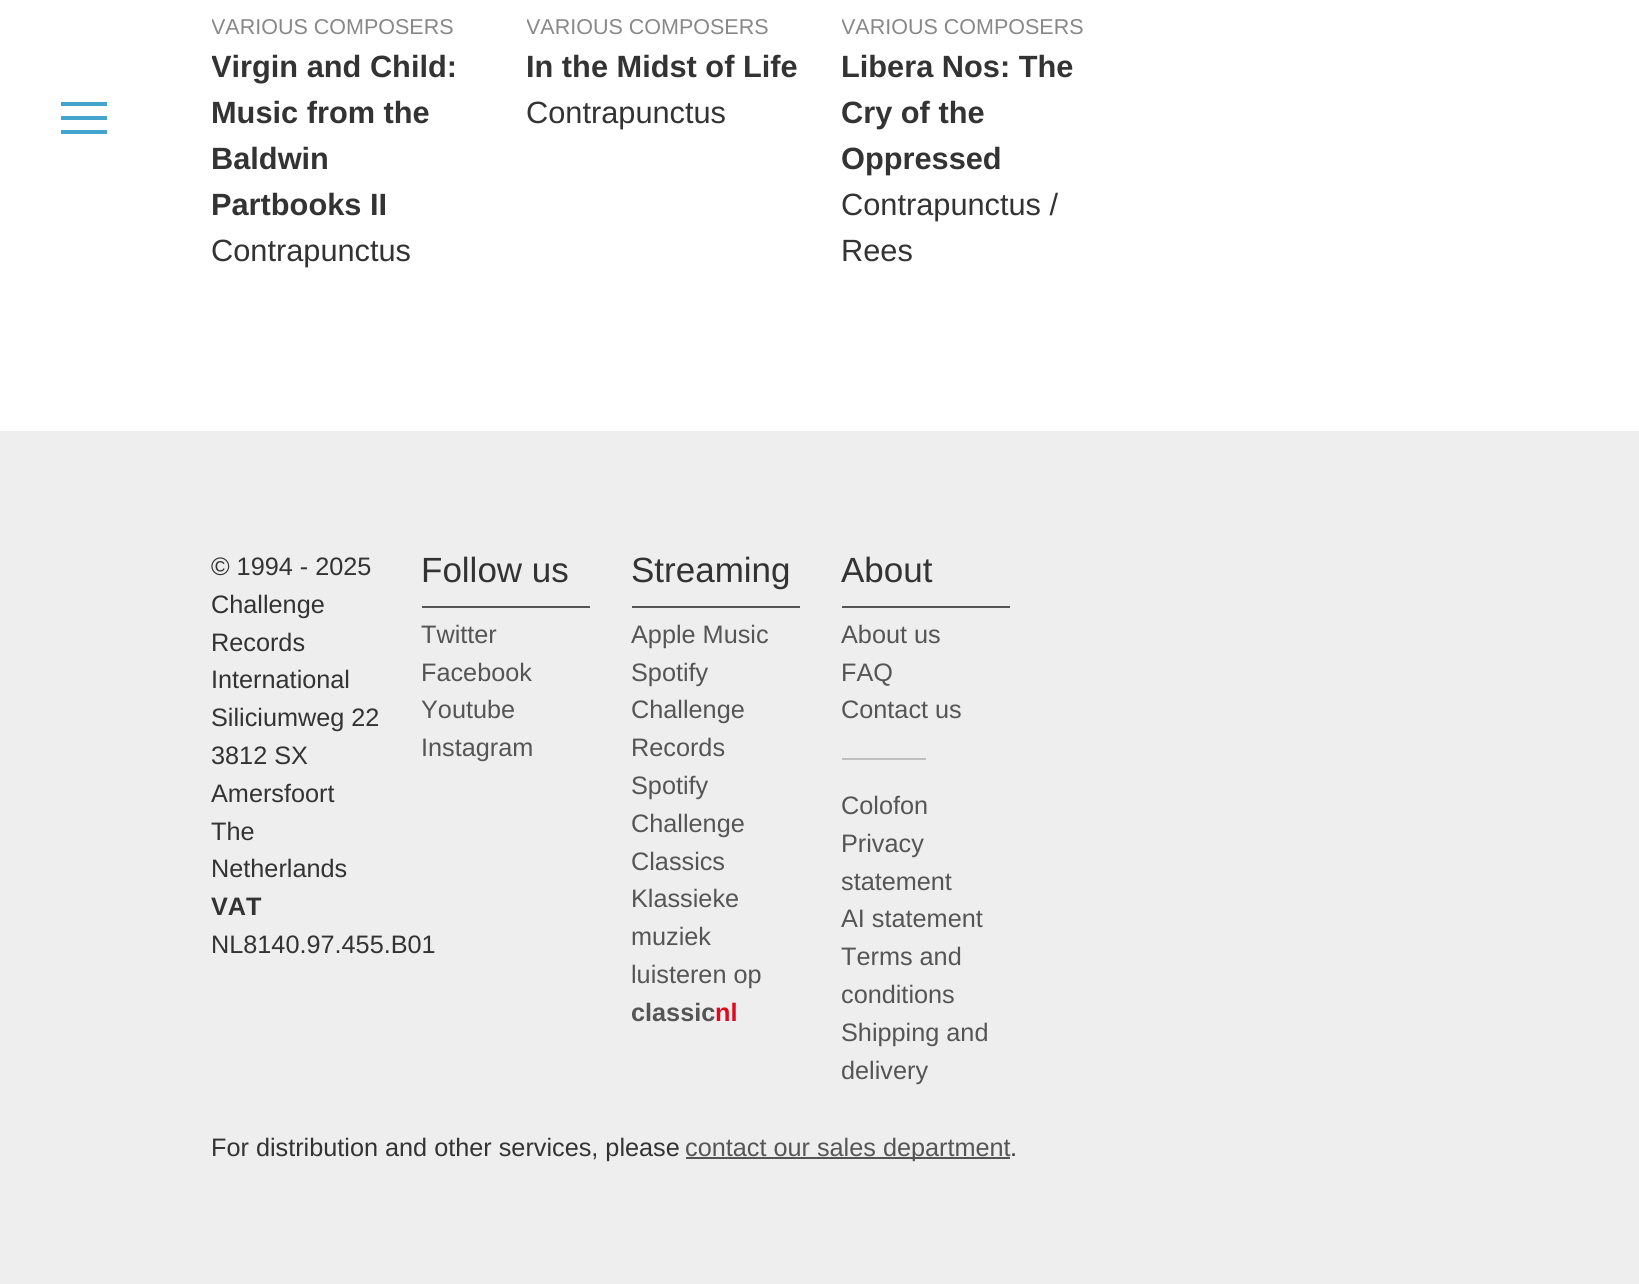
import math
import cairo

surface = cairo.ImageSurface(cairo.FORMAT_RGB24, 1639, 1284)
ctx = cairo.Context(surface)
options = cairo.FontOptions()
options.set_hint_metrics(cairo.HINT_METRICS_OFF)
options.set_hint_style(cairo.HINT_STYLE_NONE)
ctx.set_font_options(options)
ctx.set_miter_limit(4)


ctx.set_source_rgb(1, 1, 1)
ctx.paint()
ctx.set_source_rgb(0.263, 0.647, 0.8)
ctx.rectangle(61, 102, 46, 4)
ctx.fill()
ctx.rectangle(61, 116, 46, 4)
ctx.fill()
ctx.rectangle(61, 130, 46, 4)
ctx.fill()
ctx.save()
ctx.rectangle(212, 11, 273, 264)
ctx.clip()
ctx.select_font_face("Liberation Sans")
ctx.set_font_size(21.5)
ctx.set_source_rgb(0.533, 0.533, 0.533)
ctx.move_to(211, 34)
ctx.show_text("VARIOUS COMPOSERS")
ctx.select_font_face("Liberation Sans", cairo.FONT_SLANT_NORMAL, cairo.FONT_WEIGHT_BOLD)
ctx.set_font_size(30.75)
ctx.set_source_rgb(0.2, 0.2, 0.2)
ctx.move_to(211, 77)
ctx.show_text("Virgin and Child:")
ctx.restore()
ctx.select_font_face("Liberation Sans", cairo.FONT_SLANT_NORMAL, cairo.FONT_WEIGHT_BOLD)
ctx.set_font_size(30.75)
ctx.set_source_rgb(0.2, 0.2, 0.2)
ctx.move_to(211, 123)
ctx.show_text("Music from the")
ctx.move_to(211, 169)
ctx.show_text("Baldwin")
ctx.move_to(211, 215)
ctx.show_text("Partbooks II")
ctx.select_font_face("Liberation Sans")
ctx.move_to(211, 261)
ctx.show_text("Contrapunctus")
ctx.save()
ctx.rectangle(527, 11, 273, 126)
ctx.clip()
ctx.set_font_size(21.5)
ctx.set_source_rgb(0.533, 0.533, 0.533)
ctx.move_to(526, 34)
ctx.show_text("VARIOUS COMPOSERS")
ctx.restore()
ctx.select_font_face("Liberation Sans", cairo.FONT_SLANT_NORMAL, cairo.FONT_WEIGHT_BOLD)
ctx.move_to(526, 77)
ctx.show_text("In the Midst of Life")
ctx.select_font_face("Liberation Sans")
ctx.move_to(526, 123)
ctx.show_text("Contrapunctus")
ctx.save()
ctx.rectangle(842, 11, 273, 264)
ctx.clip()
ctx.set_font_size(21.5)
ctx.set_source_rgb(0.533, 0.533, 0.533)
ctx.move_to(841, 34)
ctx.show_text("VARIOUS COMPOSERS")
ctx.restore()
ctx.select_font_face("Liberation Sans", cairo.FONT_SLANT_NORMAL, cairo.FONT_WEIGHT_BOLD)
ctx.move_to(841, 77)
ctx.show_text("Libera Nos: The")
ctx.move_to(841, 123)
ctx.show_text("Cry of the")
ctx.move_to(841, 169)
ctx.show_text("Oppressed")
ctx.select_font_face("Liberation Sans")
ctx.move_to(841, 215)
ctx.show_text("Contrapunctus /")
ctx.move_to(841, 261)
ctx.show_text("Rees")
ctx.set_source_rgb(0.933, 0.933, 0.933)
ctx.rectangle(0, 431, 1639, 853)
ctx.fill()
ctx.set_font_size(25.25)
ctx.set_source_rgb(0.2, 0.2, 0.2)
ctx.move_to(211, 575)
ctx.show_text("© 1994 - 2025")
ctx.move_to(211, 613)
ctx.show_text("Challenge")
ctx.move_to(211, 651)
ctx.show_text("Records")
ctx.move_to(211, 688)
ctx.show_text("International")
ctx.move_to(211, 726)
ctx.show_text("Siliciumweg 22")
ctx.move_to(211, 764)
ctx.show_text("3812 SX")
ctx.move_to(211, 802)
ctx.show_text("Amersfoort")
ctx.move_to(211, 840)
ctx.show_text("The")
ctx.move_to(211, 877)
ctx.show_text("Netherlands")
ctx.select_font_face("Liberation Sans", cairo.FONT_SLANT_NORMAL, cairo.FONT_WEIGHT_BOLD)
ctx.move_to(211, 915)
ctx.show_text("VAT")
ctx.select_font_face("Liberation Sans")
ctx.move_to(211, 953)
ctx.show_text("NL8140.97.455.B01")
ctx.set_font_size(35)
ctx.move_to(421, 582)
ctx.show_text("Follow us")
ctx.set_source_rgb(0.333, 0.333, 0.333)
ctx.rectangle(422, 606, 168, 2)
ctx.fill()
ctx.set_font_size(25.25)
ctx.move_to(421, 643)
ctx.show_text("Twitter")
ctx.move_to(421, 681)
ctx.show_text("Facebook")
ctx.move_to(421, 718)
ctx.show_text("Youtube")
ctx.move_to(421, 756)
ctx.show_text("Instagram")
ctx.set_font_size(35)
ctx.set_source_rgb(0.2, 0.2, 0.2)
ctx.move_to(631, 582)
ctx.show_text("Streaming")
ctx.set_source_rgb(0.333, 0.333, 0.333)
ctx.rectangle(632, 606, 168, 2)
ctx.fill()
ctx.set_font_size(25.25)
ctx.move_to(631, 643)
ctx.show_text("Apple Music")
ctx.move_to(631, 681)
ctx.show_text("Spotify")
ctx.move_to(631, 718)
ctx.show_text("Challenge")
ctx.move_to(631, 756)
ctx.show_text("Records")
ctx.move_to(631, 794)
ctx.show_text("Spotify")
ctx.move_to(631, 832)
ctx.show_text("Challenge")
ctx.move_to(631, 870)
ctx.show_text("Classics")
ctx.move_to(631, 907)
ctx.show_text("Klassieke")
ctx.move_to(631, 945)
ctx.show_text("muziek")
ctx.move_to(631, 983)
ctx.show_text("luisteren op")
ctx.select_font_face("Liberation Sans", cairo.FONT_SLANT_NORMAL, cairo.FONT_WEIGHT_BOLD)
ctx.move_to(631, 1021)
ctx.show_text("classic")
ctx.set_source_rgb(0.878, 0.039, 0.118)
ctx.move_to(715, 1021)
ctx.show_text("nl")
ctx.select_font_face("Liberation Sans")
ctx.set_font_size(35)
ctx.set_source_rgb(0.2, 0.2, 0.2)
ctx.move_to(841, 582)
ctx.show_text("About")
ctx.set_source_rgb(0.333, 0.333, 0.333)
ctx.rectangle(842, 606, 168, 2)
ctx.fill()
ctx.set_font_size(25.25)
ctx.move_to(841, 643)
ctx.show_text("About us")
ctx.move_to(841, 681)
ctx.show_text("FAQ")
ctx.move_to(841, 718)
ctx.show_text("Contact us")
ctx.set_source_rgb(0.749, 0.749, 0.749)
ctx.rectangle(842, 758, 84, 2)
ctx.fill()
ctx.set_source_rgb(0.333, 0.333, 0.333)
ctx.move_to(841, 814)
ctx.show_text("Colofon")
ctx.move_to(841, 852)
ctx.show_text("Privacy")
ctx.move_to(841, 890)
ctx.show_text("statement")
ctx.move_to(841, 927)
ctx.show_text("AI statement")
ctx.move_to(841, 965)
ctx.show_text("Terms and")
ctx.move_to(841, 1003)
ctx.show_text("conditions")
ctx.move_to(841, 1041)
ctx.show_text("Shipping and")
ctx.move_to(841, 1079)
ctx.show_text("delivery")
ctx.set_source_rgb(0.2, 0.2, 0.2)
ctx.move_to(211, 1156)
ctx.show_text("For distribution and other services, please")
ctx.set_source_rgb(0.333, 0.333, 0.333)
ctx.rectangle(686, 1157, 324, 2)
ctx.fill()
ctx.move_to(685, 1156)
ctx.show_text("contact our sales department")
ctx.set_source_rgb(0.2, 0.2, 0.2)
ctx.move_to(1010, 1156)
ctx.show_text(".")
surface.write_to_png("page.png")
